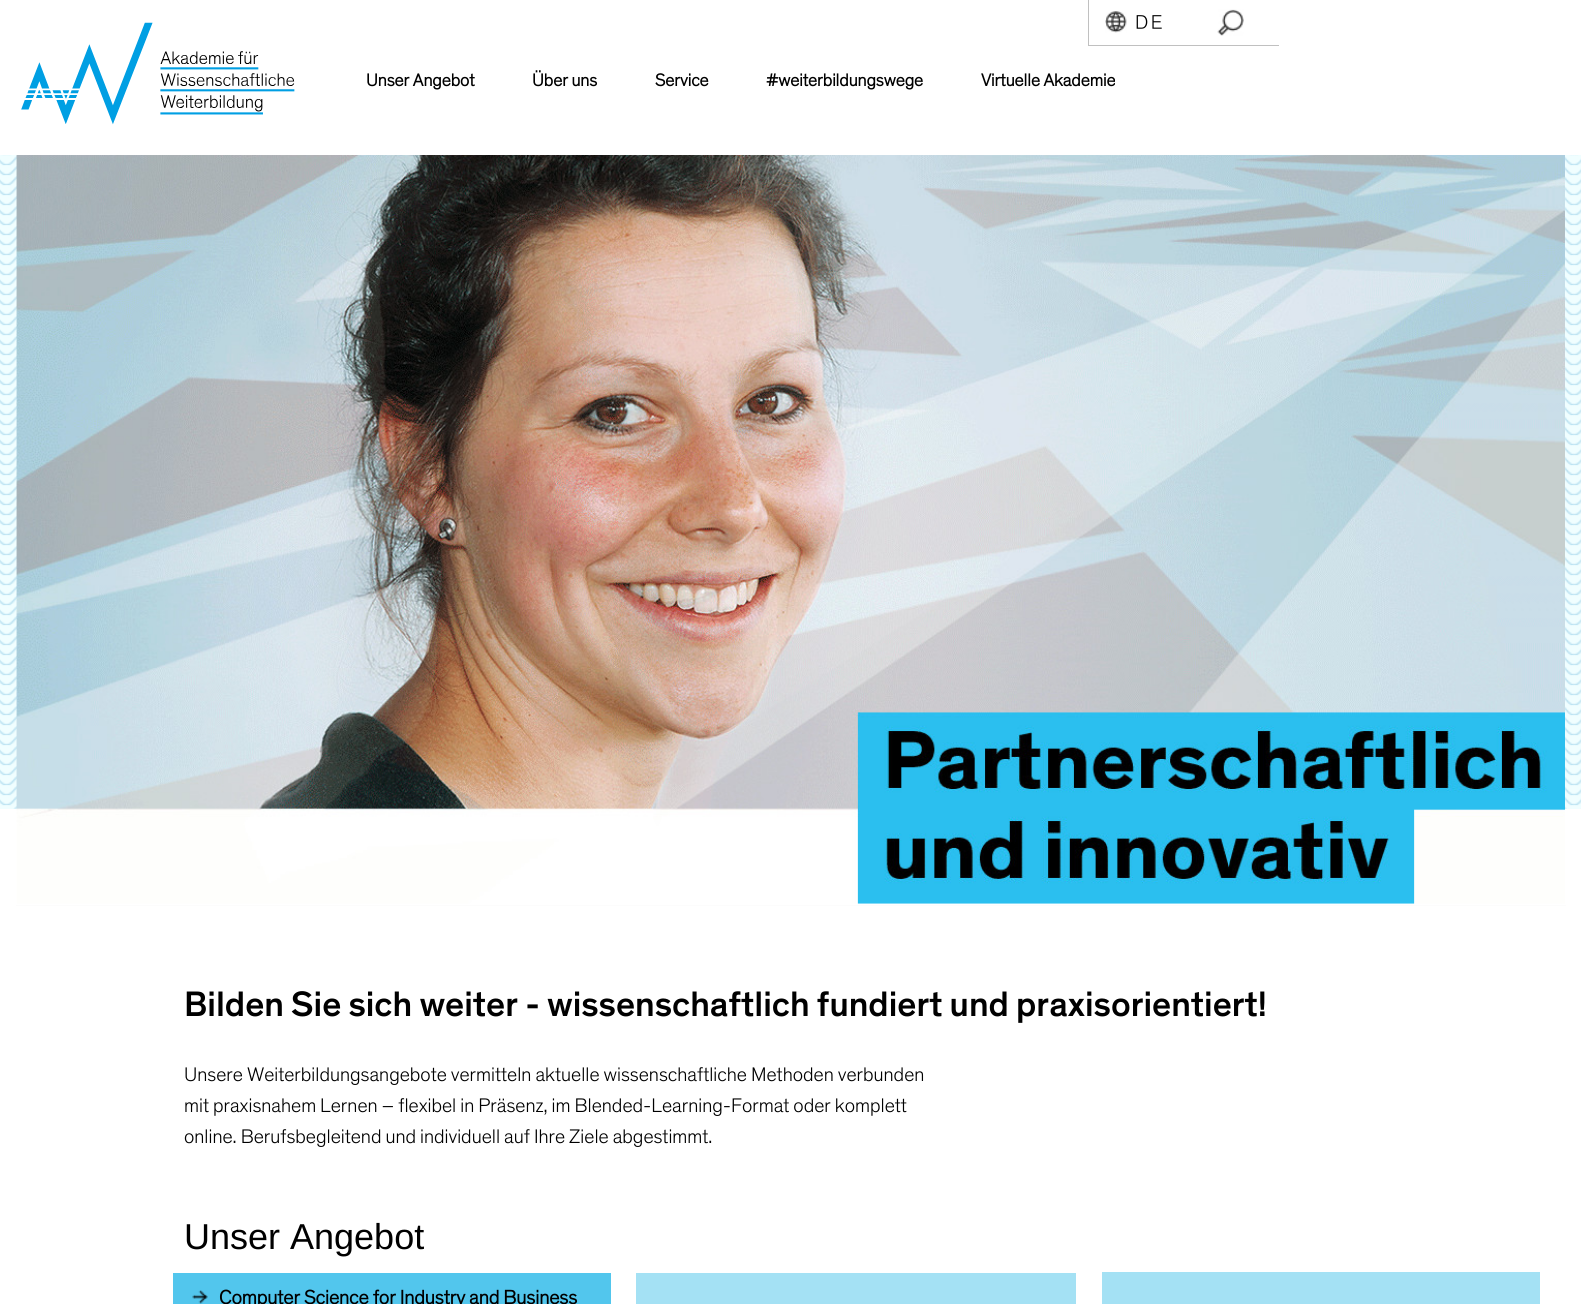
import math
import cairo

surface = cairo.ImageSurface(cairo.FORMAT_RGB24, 1581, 1304)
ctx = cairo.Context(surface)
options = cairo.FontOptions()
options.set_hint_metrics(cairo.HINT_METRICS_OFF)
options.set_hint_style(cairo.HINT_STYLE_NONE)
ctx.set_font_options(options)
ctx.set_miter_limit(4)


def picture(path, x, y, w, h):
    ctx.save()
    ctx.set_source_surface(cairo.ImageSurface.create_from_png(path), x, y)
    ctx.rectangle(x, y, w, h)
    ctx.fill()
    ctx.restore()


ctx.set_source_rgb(1, 1, 1)
ctx.paint()
ctx.set_source_rgb(0.753, 0.753, 0.753)
ctx.rectangle(1088, 45, 191, 1)
ctx.fill()
ctx.rectangle(1088, 0, 1, 46)
ctx.fill()
picture("img1.png", 1105, 11, 22, 22)
picture("img2.png", 1136, 15, 26, 14)
picture("img3.png", 1217, 9, 27, 27)
picture("img4.png", 21, 22, 274, 103)
ctx.select_font_face("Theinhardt", cairo.FONT_SLANT_NORMAL, cairo.FONT_WEIGHT_BOLD)
ctx.set_font_size(17.75)
ctx.set_source_rgb(0, 0, 0)
ctx.move_to(366, 86)
ctx.show_text("Unser Angebot")
ctx.move_to(532, 86)
ctx.show_text("Über uns")
ctx.move_to(655, 86)
ctx.show_text("Service")
ctx.move_to(766, 86)
ctx.show_text("#weiterbildungswege")
ctx.move_to(981, 86)
ctx.show_text("Virtuelle Akademie")
ctx.set_source_rgb(0.941, 0.996, 1)
ctx.rectangle(0, 155, 1581, 654)
ctx.fill()
picture("img5.png", 0, 155, 1581, 654)
ctx.set_source_rgb(0.988, 0.988, 0.988)
ctx.rectangle(16, 905, 1550, 1)
ctx.fill()
picture("img6.png", 16, 155, 1549, 749)
ctx.select_font_face("Theinhardt")
ctx.set_font_size(36)
ctx.set_source_rgb(0, 0, 0)
ctx.move_to(184, 1016)
ctx.show_text("Bilden Sie sich weiter - wissenschaftlich fundiert und praxisorientiert!")
ctx.select_font_face("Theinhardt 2")
ctx.set_font_size(20)
ctx.move_to(184, 1081)
ctx.show_text("Unsere Weiterbildungsangebote vermitteln aktuelle wissenschaftliche Methoden verbunden")
ctx.move_to(184, 1112)
ctx.show_text("mit praxisnahem Lernen – flexibel in Präsenz, im Blended-Learning-Format oder komplett")
ctx.move_to(184, 1143)
ctx.show_text("online. Berufsbegleitend und individuell auf Ihre Ziele abgestimmt.")
ctx.select_font_face("Liberation Sans")
ctx.set_font_size(36)
ctx.move_to(184, 1249)
ctx.show_text("Unser Angebot")
ctx.set_source_rgb(0.322, 0.776, 0.929)
ctx.rectangle(173, 1273, 438, 31)
ctx.fill()
picture("img7.png", 192, 1290, 16, 14)
ctx.select_font_face("Theinhardt", cairo.FONT_SLANT_NORMAL, cairo.FONT_WEIGHT_BOLD)
ctx.set_font_size(20)
ctx.set_source_rgb(0, 0, 0)
ctx.move_to(219, 1304)
ctx.show_text("Computer Science for Industry and Business")
ctx.set_source_rgb(0.643, 0.882, 0.957)
ctx.rectangle(636, 1273, 440, 31)
ctx.fill()
ctx.rectangle(1102, 1272, 438, 32)
ctx.fill()
surface.write_to_png("page.png")
